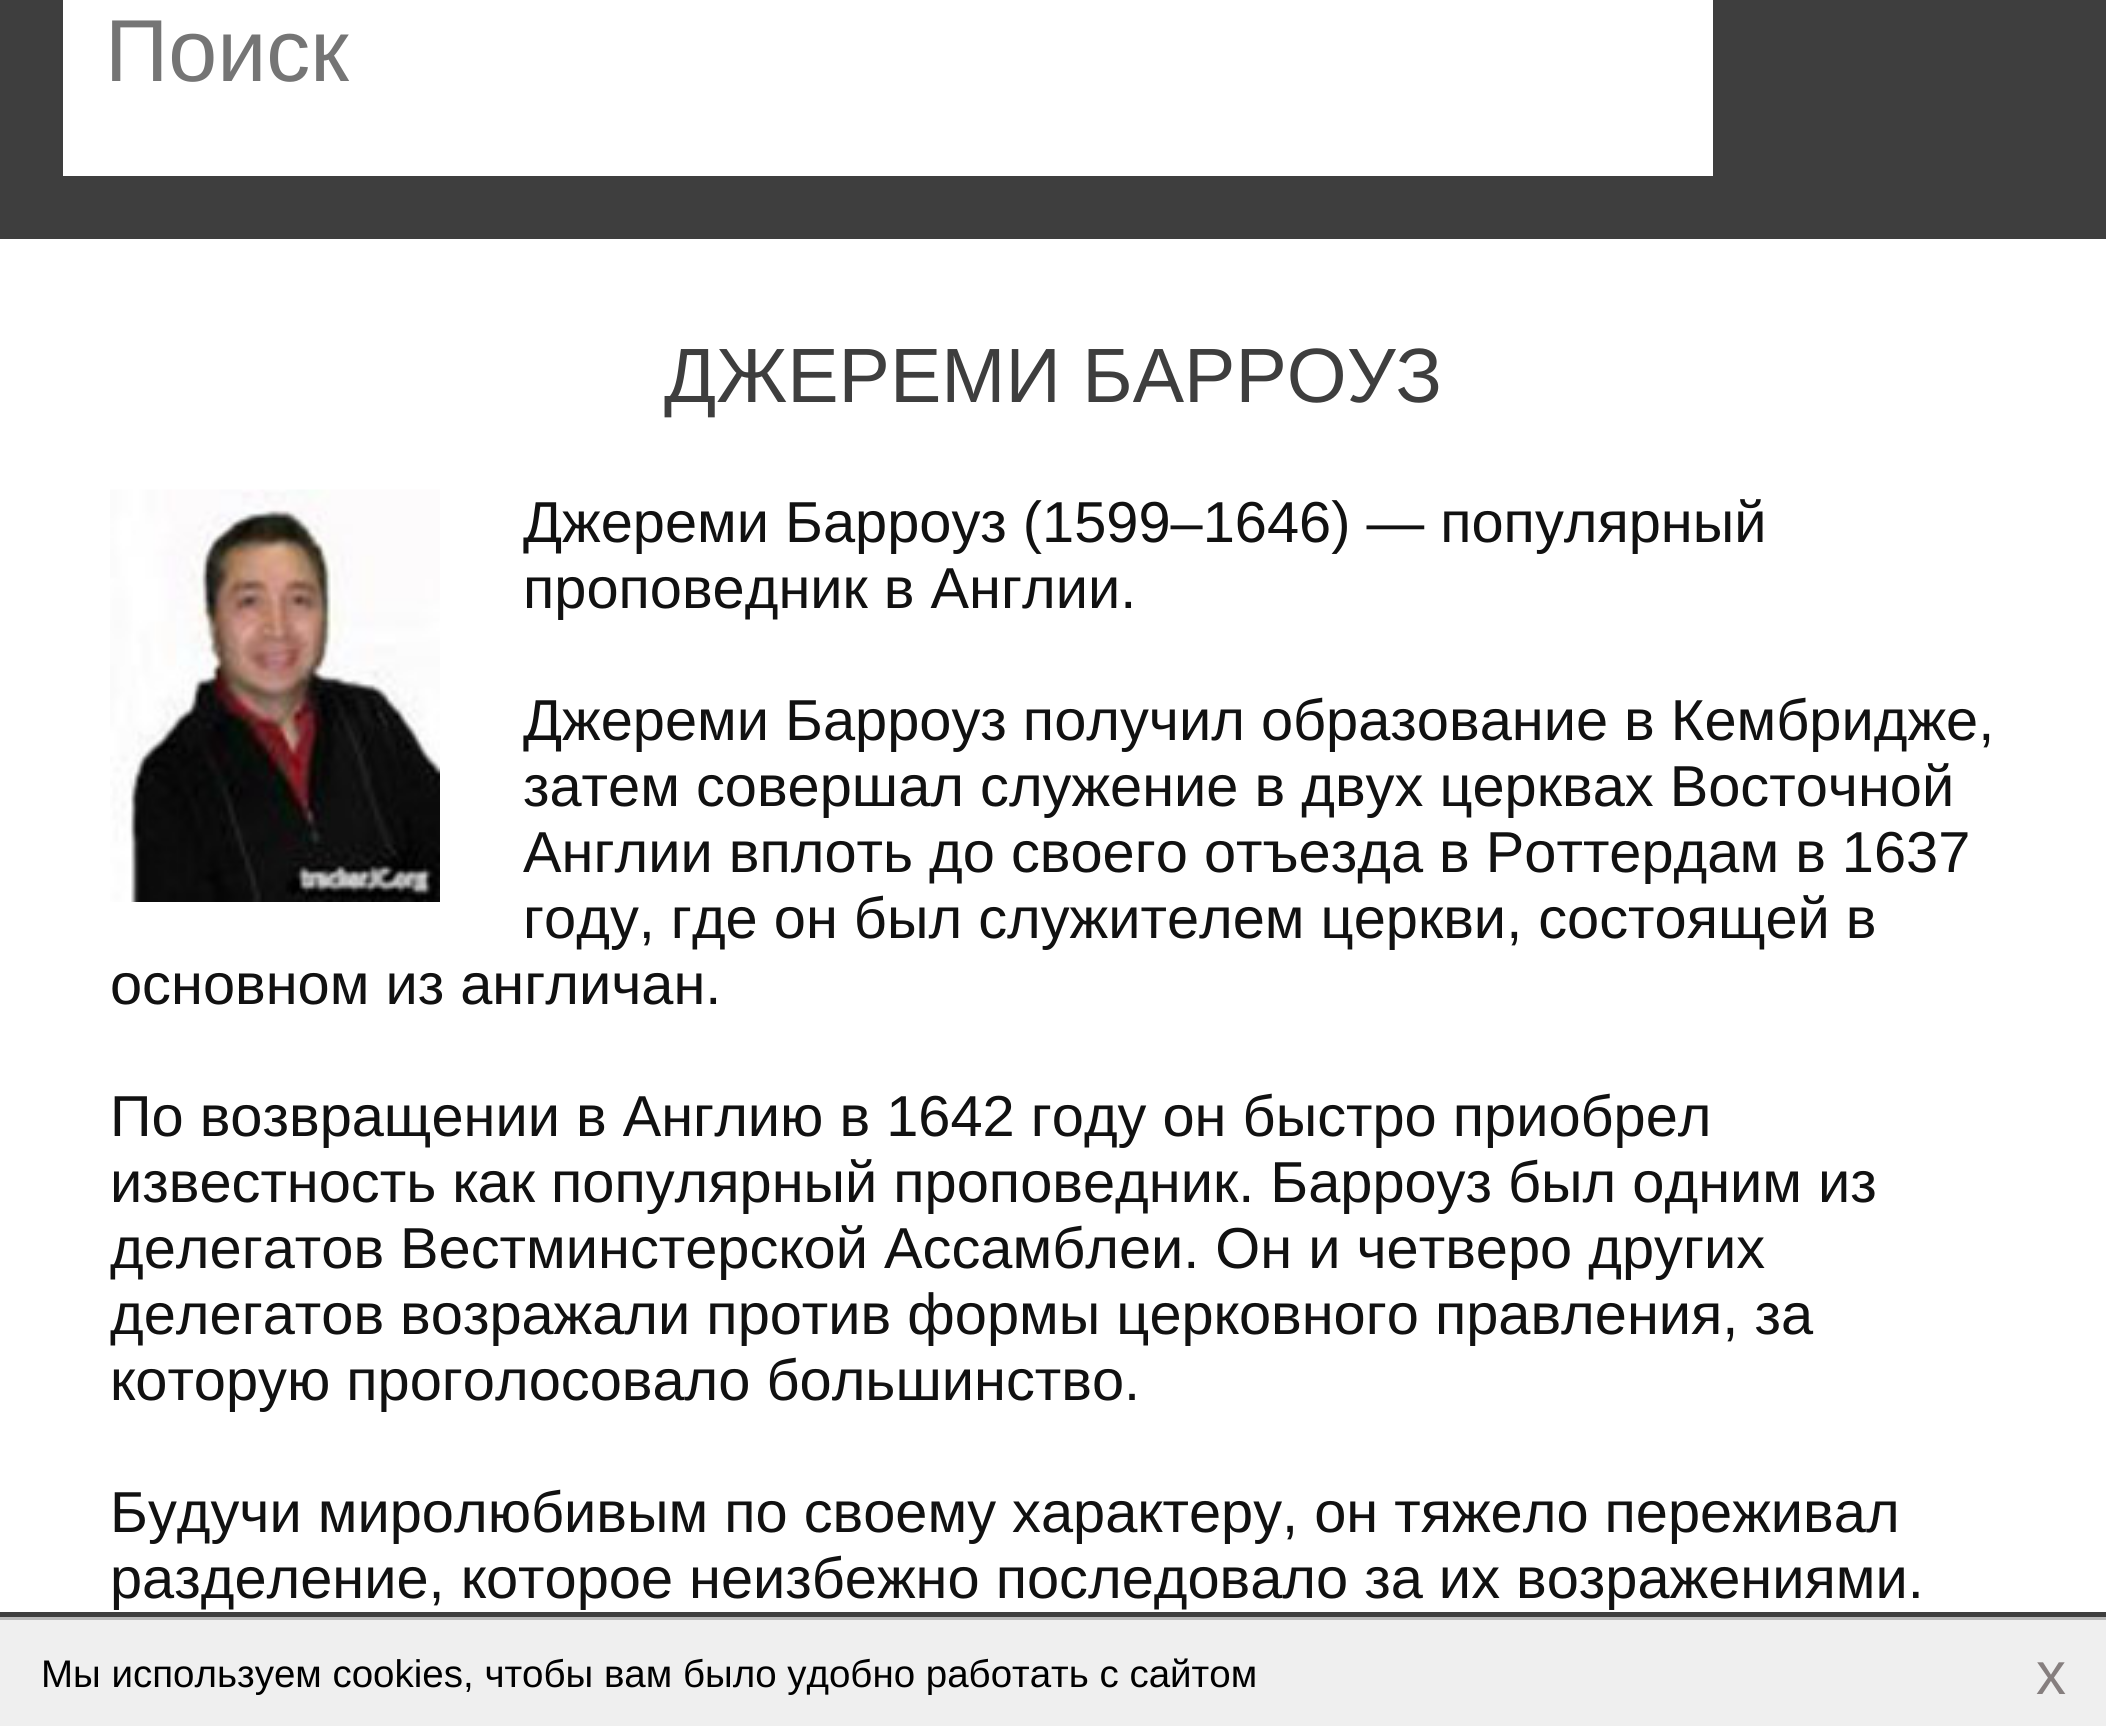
import math
import cairo

surface = cairo.ImageSurface(cairo.FORMAT_RGB24, 2106, 1726)
ctx = cairo.Context(surface)
options = cairo.FontOptions()
options.set_hint_metrics(cairo.HINT_METRICS_OFF)
options.set_hint_style(cairo.HINT_STYLE_NONE)
ctx.set_font_options(options)
ctx.set_miter_limit(4)


def picture(path, x, y, w, h):
    ctx.save()
    ctx.set_source_surface(cairo.ImageSurface.create_from_png(path), x, y)
    ctx.rectangle(x, y, w, h)
    ctx.fill()
    ctx.restore()


ctx.set_source_rgb(1, 1, 1)
ctx.paint()
ctx.set_source_rgb(0.243, 0.243, 0.243)
ctx.rectangle(0, 0, 2106, 239)
ctx.fill()
ctx.set_source_rgb(1, 1, 1)
ctx.rectangle(63, 0, 1650, 176)
ctx.fill()
ctx.select_font_face("Liberation Sans")
ctx.set_font_size(88)
ctx.set_source_rgb(0.459, 0.459, 0.459)
ctx.move_to(105, 81)
ctx.show_text("Поиск")
ctx.set_font_size(77)
ctx.set_source_rgb(0.243, 0.243, 0.243)
ctx.move_to(664, 402)
ctx.show_text("ДЖЕРЕМИ БАРРОУЗ")
picture("img1.png", 110, 489, 330, 413)
ctx.set_font_size(57.75)
ctx.set_source_rgb(0.067, 0.067, 0.067)
ctx.move_to(523, 542)
ctx.show_text("Джереми Барроуз (1599–1646) — популярный")
ctx.move_to(523, 608)
ctx.show_text("проповедник в Англии.")
ctx.move_to(523, 740)
ctx.show_text("Джереми Барроуз получил образование в Кембридже,")
ctx.move_to(523, 806)
ctx.show_text("затем совершал служение в двух церквах Восточной")
ctx.move_to(523, 872)
ctx.show_text("Англии вплоть до своего отъезда в Роттердам в 1637")
ctx.move_to(523, 938)
ctx.show_text("году, где он был служителем церкви, состоящей в")
ctx.move_to(110, 1004)
ctx.show_text("основном из англичан.")
ctx.move_to(110, 1136)
ctx.show_text("По возвращении в Англию в 1642 году он быстро приобрел")
ctx.move_to(110, 1202)
ctx.show_text("известность как популярный проповедник. Барроуз был одним из")
ctx.move_to(110, 1268)
ctx.show_text("делегатов Вестминстерской Ассамблеи. Он и четверо других")
ctx.move_to(110, 1334)
ctx.show_text("делегатов возражали против формы церковного правления, за")
ctx.move_to(110, 1400)
ctx.show_text("которую проголосовало большинство.")
ctx.move_to(110, 1532)
ctx.show_text("Будучи миролюбивым по своему характеру, он тяжело переживал")
ctx.move_to(110, 1598)
ctx.show_text("разделение, которое неизбежно последовало за их возражениями.")
ctx.set_source_rgb(0.243, 0.243, 0.243)
ctx.rectangle(0, 1612, 2106, 5)
ctx.fill()
ctx.set_source_rgb(0.937, 0.937, 0.937)
ctx.rectangle(0, 1620, 2106, 106)
ctx.fill()
ctx.set_source_rgb(0.725, 0.725, 0.725)
ctx.rectangle(0, 1617, 2106, 3)
ctx.fill()
ctx.set_font_size(38.5)
ctx.set_source_rgb(0, 0, 0)
ctx.move_to(41, 1687)
ctx.show_text("Мы используем cookies, чтобы вам было удобно работать с сайтом")
ctx.set_font_size(60)
ctx.set_source_rgb(0.525, 0.498, 0.498)
ctx.move_to(2036, 1694)
ctx.show_text("x")
surface.write_to_png("page.png")
